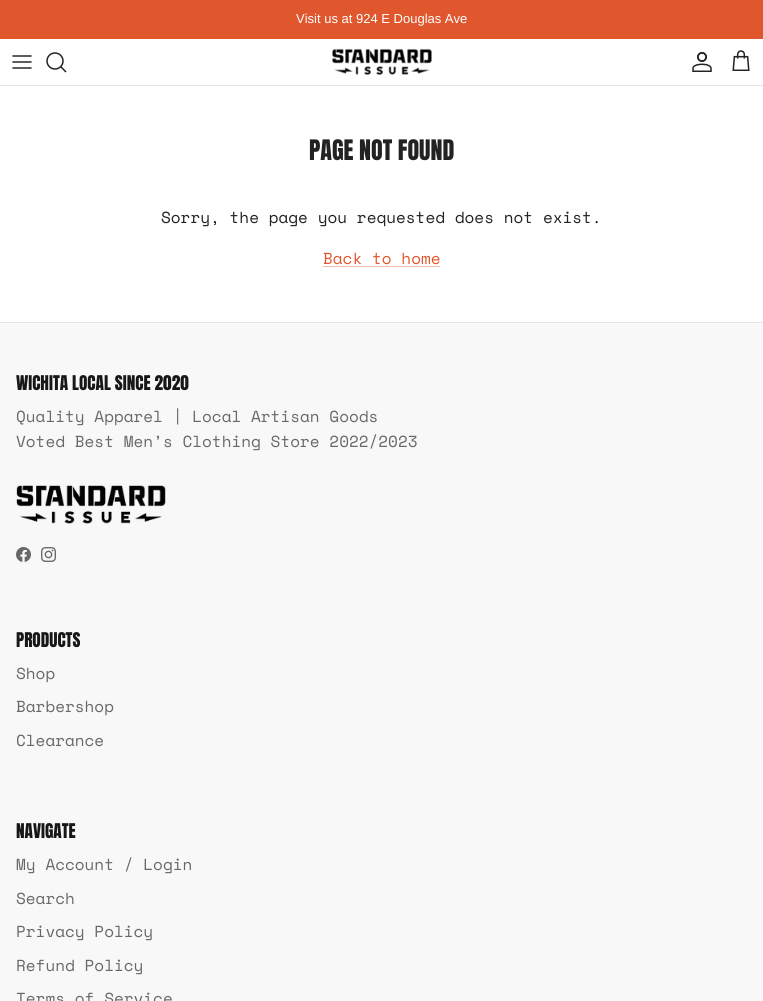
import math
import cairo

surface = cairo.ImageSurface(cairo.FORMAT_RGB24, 763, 1001)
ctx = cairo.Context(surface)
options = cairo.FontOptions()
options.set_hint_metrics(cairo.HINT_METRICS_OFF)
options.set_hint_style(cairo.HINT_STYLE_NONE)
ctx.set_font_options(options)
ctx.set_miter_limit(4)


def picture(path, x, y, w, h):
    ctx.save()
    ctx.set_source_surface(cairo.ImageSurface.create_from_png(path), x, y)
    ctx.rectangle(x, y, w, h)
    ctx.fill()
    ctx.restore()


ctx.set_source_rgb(1, 1, 1)
ctx.paint()
ctx.set_source_rgb(0.878, 0.337, 0.176)
ctx.rectangle(0, 0, 763, 39)
ctx.fill()
ctx.select_font_face("Arimo")
ctx.set_font_size(13)
ctx.set_source_rgb(1, 1, 1)
ctx.move_to(296, 23)
ctx.show_text("Visit us at 924 E Douglas Ave")
ctx.set_source_rgb(0.886, 0.886, 0.886)
ctx.rectangle(0, 85, 763, 1)
ctx.fill()
ctx.new_path()
ctx.move_to(13, 62)
ctx.line_to(31, 62)
ctx.move_to(13, 56)
ctx.line_to(31, 56)
ctx.move_to(13, 68)
ctx.line_to(31, 68)
ctx.set_source_rgb(0.133, 0.133, 0.133)
ctx.set_line_width(1.5)
ctx.set_line_cap(cairo.LINE_CAP_ROUND)
ctx.set_line_join(cairo.LINE_JOIN_ROUND)
ctx.stroke()
ctx.arc(55, 61, 8, 0, 2 * math.pi)
ctx.set_line_cap(cairo.LINE_CAP_BUTT)
ctx.set_line_join(cairo.LINE_JOIN_MITER)
ctx.stroke()
ctx.new_path()
ctx.move_to(61, 67)
ctx.line_to(65.5, 71.5)
ctx.set_line_cap(cairo.LINE_CAP_SQUARE)
ctx.stroke()
picture("img1.png", 331, 48, 101, 27)
picture("img2.png", 692, 52, 20, 20)
picture("img3.png", 732, 50, 18, 21)
ctx.select_font_face("Anton")
ctx.set_font_size(24)
ctx.move_to(309, 160)
ctx.show_text("PAGE NOT FOUND")
ctx.select_font_face("Space Mono")
ctx.set_font_size(16)
ctx.move_to(161, 223)
ctx.show_text("Sorry, the page you requested does not exist.")
ctx.set_source_rgb(0.878, 0.337, 0.176)
ctx.move_to(323, 264)
ctx.show_text("Back to home")
ctx.set_source_rgb(0.953, 0.733, 0.671)
ctx.rectangle(323, 266, 117, 1)
ctx.fill()
ctx.set_source_rgb(0.969, 0.969, 0.973)
ctx.rectangle(0, 323, 763, 678)
ctx.fill()
ctx.set_source_rgb(0.894, 0.894, 0.894)
ctx.rectangle(0, 322, 763, 1)
ctx.fill()
ctx.select_font_face("Anton")
ctx.set_font_size(17.25)
ctx.set_source_rgb(0.09, 0.09, 0.09)
ctx.move_to(16, 390)
ctx.show_text("WICHITA LOCAL SINCE 2020")
ctx.select_font_face("Space Mono")
ctx.set_font_size(16)
ctx.set_source_rgb(0.404, 0.408, 0.412)
ctx.move_to(16, 422)
ctx.show_text("Quality Apparel | Local Artisan Goods")
ctx.move_to(16, 447)
ctx.show_text("Voted Best Men’s Clothing Store 2022/2023")
picture("img4.png", 16, 485, 150, 39)
picture("img5.png", 16, 547, 15, 15)
picture("img6.png", 41, 547, 15, 15)
ctx.select_font_face("Anton")
ctx.set_font_size(17.25)
ctx.set_source_rgb(0.09, 0.09, 0.09)
ctx.move_to(16, 647)
ctx.show_text("PRODUCTS")
ctx.select_font_face("Space Mono")
ctx.set_font_size(16)
ctx.set_source_rgb(0.404, 0.408, 0.412)
ctx.move_to(16, 679)
ctx.show_text("Shop")
ctx.move_to(16, 712)
ctx.show_text("Barbershop")
ctx.move_to(16, 746)
ctx.show_text("Clearance")
ctx.select_font_face("Anton")
ctx.set_font_size(17.25)
ctx.set_source_rgb(0.09, 0.09, 0.09)
ctx.move_to(16, 838)
ctx.show_text("NAVIGATE")
ctx.select_font_face("Space Mono")
ctx.set_font_size(16)
ctx.set_source_rgb(0.404, 0.408, 0.412)
ctx.move_to(16, 870)
ctx.show_text("My Account / Login")
ctx.move_to(16, 904)
ctx.show_text("Search")
ctx.move_to(16, 937)
ctx.show_text("Privacy Policy")
ctx.move_to(16, 971)
ctx.show_text("Refund Policy")
ctx.move_to(16, 1004)
ctx.show_text("Terms of Service")
surface.write_to_png("page.png")
